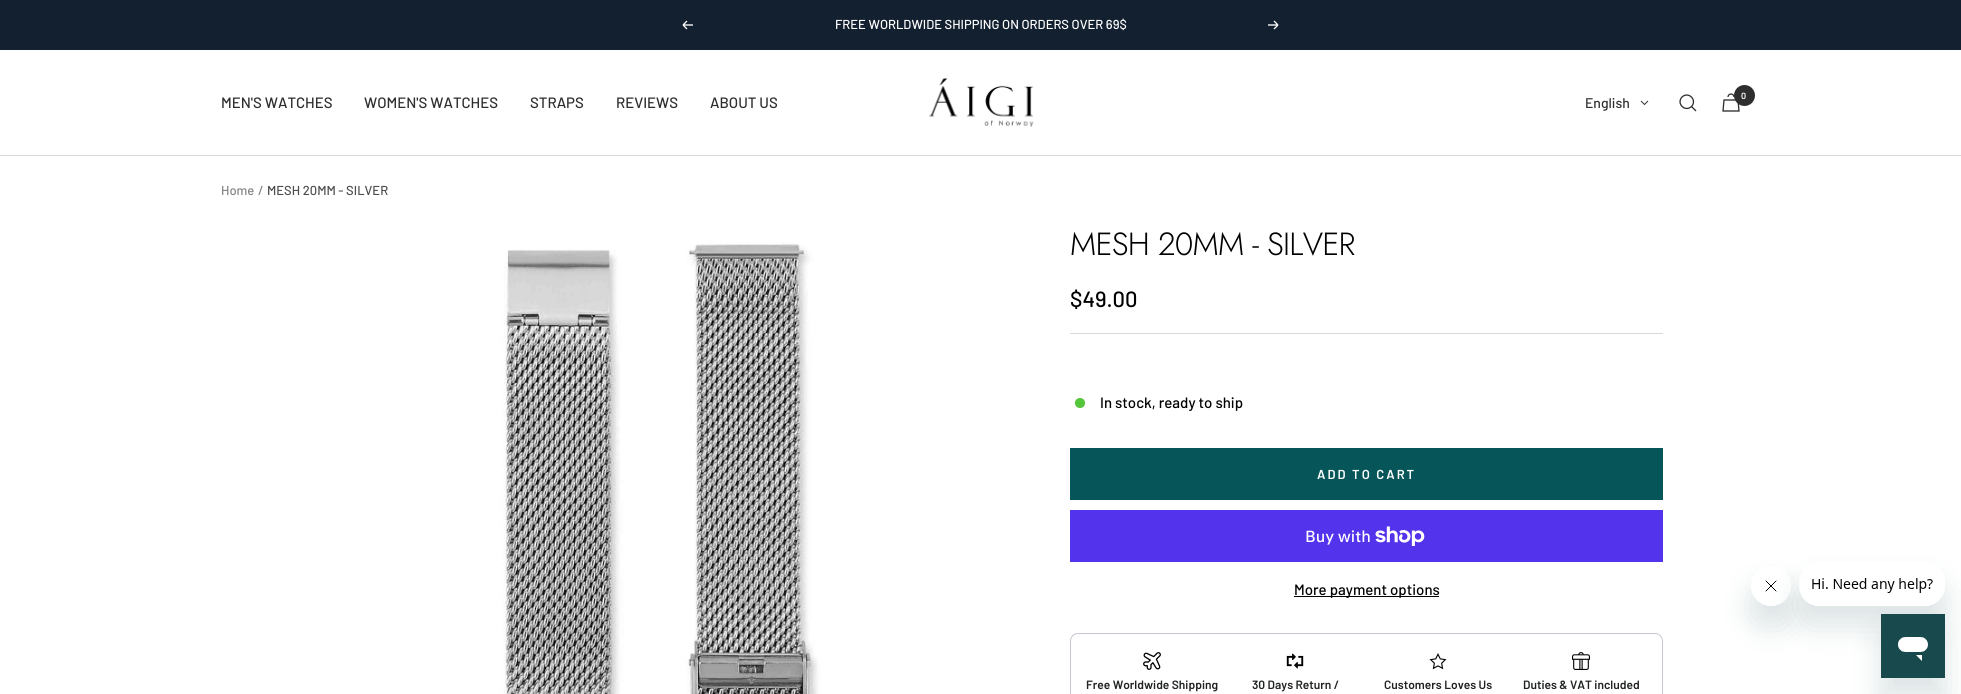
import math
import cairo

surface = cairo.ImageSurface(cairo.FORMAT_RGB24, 1961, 694)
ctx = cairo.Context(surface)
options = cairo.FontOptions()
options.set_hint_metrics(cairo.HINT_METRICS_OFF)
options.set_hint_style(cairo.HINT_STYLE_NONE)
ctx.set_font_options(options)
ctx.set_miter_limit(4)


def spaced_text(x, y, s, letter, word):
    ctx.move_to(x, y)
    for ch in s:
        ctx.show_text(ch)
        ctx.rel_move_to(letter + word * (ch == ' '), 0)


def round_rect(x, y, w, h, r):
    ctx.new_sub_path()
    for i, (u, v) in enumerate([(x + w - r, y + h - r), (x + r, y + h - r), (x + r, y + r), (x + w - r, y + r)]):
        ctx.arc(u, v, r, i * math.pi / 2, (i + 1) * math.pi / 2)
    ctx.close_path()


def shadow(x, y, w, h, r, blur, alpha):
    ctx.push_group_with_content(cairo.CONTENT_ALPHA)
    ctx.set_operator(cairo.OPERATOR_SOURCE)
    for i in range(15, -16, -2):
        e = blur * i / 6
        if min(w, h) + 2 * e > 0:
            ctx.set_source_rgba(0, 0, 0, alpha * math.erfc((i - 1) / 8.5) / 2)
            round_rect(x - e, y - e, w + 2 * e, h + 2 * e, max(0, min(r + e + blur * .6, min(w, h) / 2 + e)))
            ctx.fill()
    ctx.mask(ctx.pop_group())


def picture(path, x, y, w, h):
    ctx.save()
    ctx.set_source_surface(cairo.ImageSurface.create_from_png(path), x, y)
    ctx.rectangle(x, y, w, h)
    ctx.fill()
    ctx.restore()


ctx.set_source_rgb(1, 1, 1)
ctx.paint()
ctx.set_source_rgb(0.075, 0.125, 0.184)
ctx.rectangle(0, 0, 1961, 50)
ctx.fill()
ctx.new_path()
ctx.move_to(693, 25)
ctx.line_to(683, 25)
ctx.move_to(683, 25)
ctx.line_to(687, 29)
ctx.move_to(683, 25)
ctx.line_to(687, 21)
ctx.set_source_rgb(1, 1, 1)
ctx.set_line_width(1.3)
ctx.stroke()
ctx.select_font_face("Barlow Medium")
ctx.set_font_size(13)
ctx.move_to(835, 29)
ctx.show_text("FREE WORLDWIDE SHIPPING ON ORDERS OVER 69$")
ctx.new_path()
ctx.move_to(1268, 25)
ctx.line_to(1278, 25)
ctx.move_to(1278, 25)
ctx.line_to(1274, 29)
ctx.move_to(1278, 25)
ctx.line_to(1274, 21)
ctx.stroke()
ctx.set_source_rgb(0.851, 0.851, 0.851)
ctx.rectangle(0, 155, 1961, 1)
ctx.fill()
ctx.set_font_size(15)
ctx.set_source_rgb(0.18, 0.18, 0.18)
ctx.move_to(221, 108)
ctx.show_text("MEN'S WATCHES")
ctx.move_to(364, 108)
ctx.show_text("WOMEN'S WATCHES")
ctx.move_to(530, 108)
ctx.show_text("STRAPS")
ctx.move_to(616, 108)
ctx.show_text("REVIEWS")
ctx.move_to(710, 108)
ctx.show_text("ABOUT US")
picture("img1.png", 929, 78, 105, 49)
ctx.new_path()
ctx.move_to(1691.5, 106.5)
ctx.curve_to(1697.5, 100, 1688.5, 91, 1682, 97)
ctx.curve_to(1676, 103.5, 1685, 112.5, 1691.5, 106.5)
ctx.close_path()
ctx.move_to(1691.5, 106.5)
ctx.line_to(1696, 111)
ctx.stroke()
picture("img2.png", 1722, 93, 18, 19)
ctx.arc(1744.5, 95.5, 10.5, 0, 2 * math.pi)
ctx.fill()
ctx.select_font_face("Barlow SemiBold")
ctx.set_font_size(9)
ctx.set_source_rgb(1, 1, 1)
ctx.move_to(1741, 99)
ctx.show_text("0")
ctx.select_font_face("Barlow Medium")
ctx.set_font_size(14)
ctx.set_source_rgb(0.18, 0.18, 0.18)
ctx.move_to(1585, 108)
ctx.show_text("English")
ctx.new_path()
ctx.move_to(1641, 101)
ctx.line_to(1644.5, 104.5)
ctx.line_to(1648, 101)
ctx.set_line_width(1)
ctx.stroke()
ctx.set_font_size(13)
ctx.set_source_rgb(0.51, 0.51, 0.51)
ctx.move_to(221, 195)
ctx.show_text("Home")
ctx.move_to(258, 195)
ctx.show_text("/")
ctx.set_source_rgb(0.302, 0.302, 0.302)
ctx.move_to(267, 195)
ctx.show_text("MESH 20MM - SILVER")
picture("img3.png", 334, 227, 634, 467)
ctx.set_source_rgb(0.851, 0.851, 0.851)
ctx.rectangle(1070, 333, 593, 1)
ctx.fill()
ctx.select_font_face("Jost Light")
ctx.set_font_size(32)
ctx.set_source_rgb(0, 0, 0)
spaced_text(1070, 255, "MESH 20MM - SILVER", -0.75, 0)
ctx.select_font_face("Barlow Medium")
ctx.set_font_size(22)
ctx.move_to(1070, 307)
ctx.show_text("$49.00")
ctx.set_source_rgb(0.329, 0.776, 0.227)
ctx.new_path()
ctx.arc(1080, 403, 5, 0, 2 * math.pi)
ctx.fill()
ctx.set_font_size(15)
ctx.set_source_rgb(0, 0, 0)
ctx.move_to(1100, 408)
ctx.show_text("In stock, ready to ship")
ctx.set_source_rgb(0.024, 0.337, 0.349)
ctx.rectangle(1070, 448, 593, 52)
ctx.fill()
ctx.select_font_face("Barlow SemiBold")
ctx.set_font_size(13)
ctx.set_source_rgb(1, 1, 1)
spaced_text(1317, 479, "ADD TO CART", 2, 0)
ctx.set_source_rgb(0.329, 0.2, 0.922)
ctx.rectangle(1070, 510, 593, 52)
ctx.fill()
ctx.select_font_face("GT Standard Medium")
ctx.set_font_size(16)
ctx.set_source_rgb(1, 1, 1)
ctx.move_to(1305, 542)
ctx.show_text("Buy with")
picture("img4.png", 1375, 526, 50, 20)
ctx.set_source_rgb(0, 0, 0)
ctx.rectangle(1294, 596, 145, 1)
ctx.fill()
ctx.select_font_face("Barlow Medium")
ctx.set_font_size(15)
ctx.move_to(1294, 595)
ctx.show_text("More payment options")
round_rect(1070.5, 633.5, 592, 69, 7.5)
ctx.set_source_rgb(0.773, 0.784, 0.82)
ctx.stroke()
picture("img5.png", 1143, 652, 18, 18)
ctx.select_font_face("Barlow SemiBold")
ctx.set_font_size(12)
ctx.set_source_rgb(0.125, 0.133, 0.137)
ctx.move_to(1086, 689)
ctx.show_text("Free Worldwide Shipping")
picture("img6.png", 1286, 653, 18, 16)
ctx.move_to(1252, 689)
ctx.show_text("30 Days Return /")
picture("img7.png", 1429, 653, 18, 17)
ctx.move_to(1384, 689)
ctx.show_text("Customers Loves Us")
picture("img8.png", 1572, 652, 18, 18)
ctx.move_to(1523, 689)
ctx.show_text("Duties & VAT included")
ctx.save()
ctx.set_fill_rule(cairo.FILL_RULE_EVEN_ODD)
ctx.new_path()
ctx.move_to(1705, 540)
ctx.line_to(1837, 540)
ctx.line_to(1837, 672)
ctx.line_to(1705, 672)
ctx.close_path()
ctx.move_to(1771, 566)
ctx.curve_to(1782, 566, 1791, 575, 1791, 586)
ctx.curve_to(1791, 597, 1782, 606, 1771, 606)
ctx.curve_to(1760, 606, 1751, 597, 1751, 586)
ctx.curve_to(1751, 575, 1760, 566, 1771, 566)
ctx.close_path()
ctx.clip()
ctx.set_source_rgb(0.09, 0.286, 0.302)
shadow(1751, 586, 40, 40, 20, 15, 0.15)
ctx.restore()
picture("img10.png", 1765, 580, 12, 12)
ctx.save()
ctx.set_fill_rule(cairo.FILL_RULE_EVEN_ODD)
ctx.new_path()
ctx.move_to(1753, 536)
ctx.line_to(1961, 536)
ctx.line_to(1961, 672)
ctx.line_to(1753, 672)
ctx.close_path()
ctx.move_to(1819, 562)
ctx.line_to(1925, 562)
ctx.curve_to(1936, 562, 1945, 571, 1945, 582)
ctx.line_to(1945, 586)
ctx.curve_to(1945, 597, 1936, 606, 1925, 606)
ctx.line_to(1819, 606)
ctx.curve_to(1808, 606, 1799, 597, 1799, 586)
ctx.line_to(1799, 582)
ctx.curve_to(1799, 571, 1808, 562, 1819, 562)
ctx.close_path()
ctx.clip()
ctx.set_source_rgb(0.09, 0.286, 0.302)
shadow(1799, 582, 146, 44, 20, 15, 0.15)
ctx.restore()
picture("img9.png", 1800, 578, 139, 28)
ctx.set_source_rgb(0.09, 0.286, 0.302)
shadow(1881, 634, 64, 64, 0, 15, 0.15)
picture("img11.png", 1881, 614, 64, 64)
surface.write_to_png("page.png")
